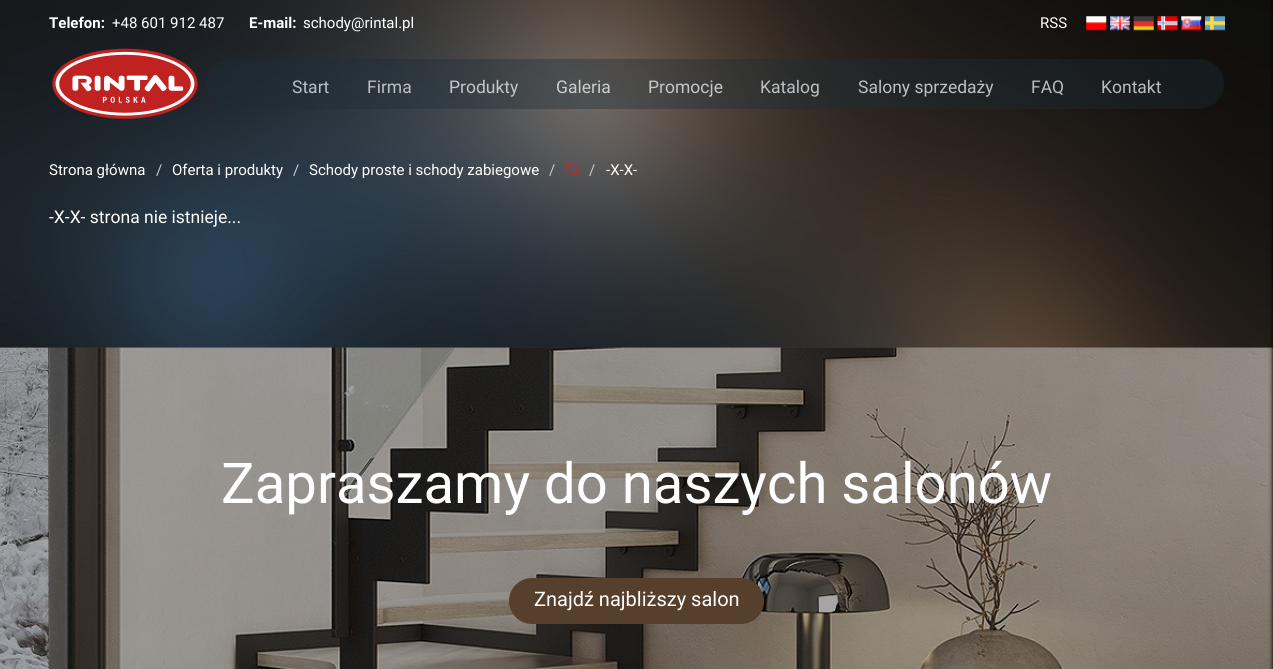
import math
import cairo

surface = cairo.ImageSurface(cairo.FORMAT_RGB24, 1273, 669)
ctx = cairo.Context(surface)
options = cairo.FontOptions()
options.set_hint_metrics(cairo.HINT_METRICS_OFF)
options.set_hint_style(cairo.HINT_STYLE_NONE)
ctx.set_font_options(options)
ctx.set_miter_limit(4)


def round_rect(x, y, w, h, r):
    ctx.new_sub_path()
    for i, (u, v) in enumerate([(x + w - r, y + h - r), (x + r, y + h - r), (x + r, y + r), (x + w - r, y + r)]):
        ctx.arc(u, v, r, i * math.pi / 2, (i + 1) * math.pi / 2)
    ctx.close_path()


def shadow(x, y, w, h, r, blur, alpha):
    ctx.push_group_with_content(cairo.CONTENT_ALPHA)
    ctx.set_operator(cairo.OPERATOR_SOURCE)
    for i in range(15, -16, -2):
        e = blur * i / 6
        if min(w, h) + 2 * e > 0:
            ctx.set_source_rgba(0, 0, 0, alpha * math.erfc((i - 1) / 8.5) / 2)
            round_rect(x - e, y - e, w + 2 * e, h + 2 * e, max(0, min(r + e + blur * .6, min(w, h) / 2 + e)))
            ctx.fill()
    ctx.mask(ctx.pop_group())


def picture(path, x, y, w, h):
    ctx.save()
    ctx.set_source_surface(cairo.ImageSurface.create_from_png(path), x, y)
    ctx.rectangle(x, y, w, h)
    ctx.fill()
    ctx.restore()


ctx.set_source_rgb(1, 1, 1)
ctx.paint()
picture("img1.png", 0, 0, 1273, 348)
picture("img2.png", 0, 113, 1273, 137)
picture("img11.png", 0, 347, 1273, 322)
ctx.set_source_rgb(0, 0, 0)
shadow(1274, 0, 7, 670, 0, 2.5, 1)
ctx.select_font_face("Roboto", cairo.FONT_SLANT_NORMAL, cairo.FONT_WEIGHT_BOLD)
ctx.set_font_size(15)
ctx.set_source_rgb(1, 1, 1)
ctx.move_to(49, 28)
ctx.show_text("Telefon:")
ctx.select_font_face("Roboto")
ctx.move_to(112, 28)
ctx.show_text("+48 601 912 487")
ctx.select_font_face("Roboto", cairo.FONT_SLANT_NORMAL, cairo.FONT_WEIGHT_BOLD)
ctx.move_to(249, 28)
ctx.show_text("E-mail:")
ctx.select_font_face("Roboto")
ctx.move_to(303, 28)
ctx.show_text("schody@rintal.pl")
ctx.move_to(1040, 28)
ctx.show_text("RSS")
picture("img3.png", 1086, 16, 21, 15)
picture("img4.png", 1110, 16, 20, 15)
picture("img5.png", 1133, 16, 21, 15)
picture("img6.png", 1157, 16, 21, 15)
picture("img7.png", 1181, 16, 21, 15)
picture("img8.png", 1205, 16, 20, 15)
picture("img9.png", 52, 48, 146, 71)
ctx.set_source_rgba(0.11, 0.176, 0.216, 0.38)
round_rect(206, 59, 1018, 50, 25)
ctx.fill()
ctx.set_font_size(17.5)
ctx.set_source_rgb(0.741, 0.753, 0.765)
ctx.move_to(292, 93)
ctx.show_text("Start")
ctx.move_to(367, 93)
ctx.show_text("Firma")
ctx.set_source_rgb(0.769, 0.776, 0.784)
ctx.move_to(449, 93)
ctx.show_text("Produkty")
ctx.set_source_rgb(0.8, 0.8, 0.8)
ctx.move_to(556, 93)
ctx.show_text("Galeria")
ctx.set_source_rgb(0.769, 0.776, 0.784)
ctx.move_to(648, 93)
ctx.show_text("Promocje")
ctx.set_source_rgb(0.741, 0.753, 0.765)
ctx.move_to(760, 93)
ctx.show_text("Katalog")
ctx.move_to(858, 93)
ctx.show_text("Salony sprzedaży")
ctx.set_source_rgb(0.733, 0.737, 0.741)
ctx.move_to(1031, 93)
ctx.show_text("FAQ")
ctx.move_to(1101, 93)
ctx.show_text("Kontakt")
ctx.set_font_size(15)
ctx.set_source_rgb(1, 1, 1)
ctx.move_to(49, 175)
ctx.show_text("Strona główna")
ctx.set_source_rgb(0.8, 0.8, 0.8)
ctx.move_to(156, 175)
ctx.show_text("/")
ctx.set_source_rgb(1, 1, 1)
ctx.move_to(172, 175)
ctx.show_text("Oferta i produkty")
ctx.set_source_rgb(0.8, 0.8, 0.8)
ctx.move_to(293, 175)
ctx.show_text("/")
ctx.set_source_rgb(1, 1, 1)
ctx.move_to(309, 175)
ctx.show_text("Schody proste i schody zabiegowe")
ctx.set_source_rgb(0.8, 0.8, 0.8)
ctx.move_to(549, 175)
ctx.show_text("/")
picture("img10.png", 565, 162, 14, 14)
ctx.move_to(589, 175)
ctx.show_text("/")
ctx.set_source_rgb(1, 1, 1)
ctx.move_to(606, 175)
ctx.show_text("-X-X-")
ctx.set_font_size(17.5)
ctx.move_to(49, 223)
ctx.show_text("-X-X- strona nie istnieje...")
ctx.set_font_size(56.25)
ctx.move_to(221, 503)
ctx.show_text("Zapraszamy do naszych salonów")
ctx.set_source_rgb(0.341, 0.251, 0.169)
round_rect(509, 578, 255, 46, 23)
ctx.fill()
ctx.set_font_size(20)
ctx.set_source_rgb(1, 1, 1)
ctx.move_to(534, 606)
ctx.show_text("Znajdź najbliższy salon")
ctx.set_source_rgb(0, 0, 0)
shadow(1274, 0, 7, 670, 0, 2.5, 1)
surface.write_to_png("page.png")
